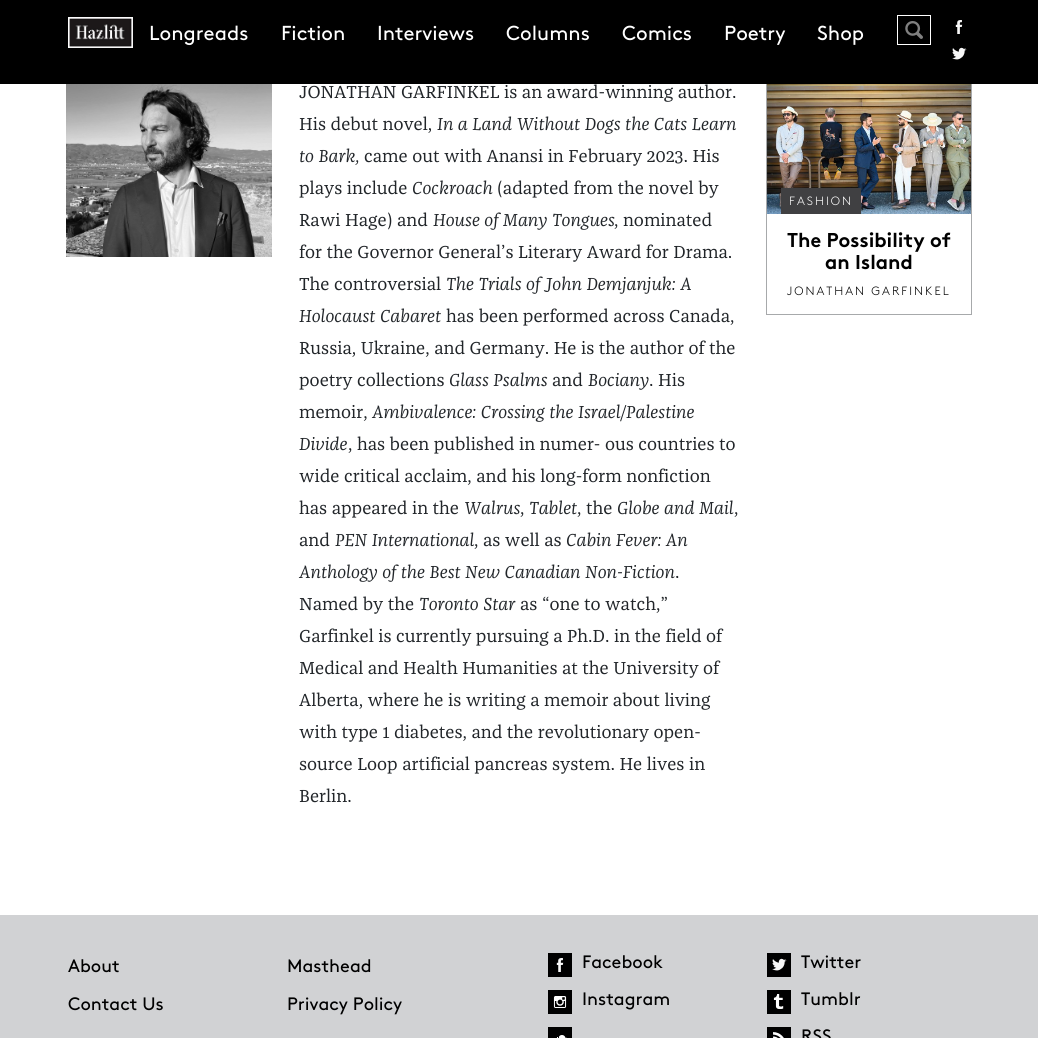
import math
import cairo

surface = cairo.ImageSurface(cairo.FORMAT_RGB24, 1038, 1038)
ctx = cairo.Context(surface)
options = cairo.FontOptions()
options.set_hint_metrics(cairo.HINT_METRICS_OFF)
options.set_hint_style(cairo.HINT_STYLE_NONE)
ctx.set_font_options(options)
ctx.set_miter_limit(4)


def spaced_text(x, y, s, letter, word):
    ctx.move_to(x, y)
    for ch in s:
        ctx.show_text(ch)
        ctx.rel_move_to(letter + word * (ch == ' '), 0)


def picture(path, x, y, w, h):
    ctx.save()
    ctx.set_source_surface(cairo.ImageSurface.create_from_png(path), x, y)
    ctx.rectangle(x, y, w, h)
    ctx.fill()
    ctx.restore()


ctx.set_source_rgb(1, 1, 1)
ctx.paint()
ctx.rectangle(766.5, 77.5, 205, 237)
ctx.set_source_rgb(0.655, 0.663, 0.671)
ctx.set_line_width(1)
ctx.stroke()
ctx.set_source_rgb(0, 0, 0)
ctx.rectangle(0, 0, 1038, 84)
ctx.fill()
picture("img1.png", 68, 17, 65, 31)
ctx.select_font_face("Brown")
ctx.set_font_size(20.25)
ctx.set_source_rgb(1, 1, 1)
ctx.move_to(149, 40)
ctx.show_text("Longreads")
ctx.move_to(281, 40)
ctx.show_text("Fiction")
ctx.move_to(377, 40)
ctx.show_text("Interviews")
ctx.move_to(506, 40)
ctx.show_text("Columns")
ctx.move_to(622, 40)
ctx.show_text("Comics")
ctx.move_to(724, 40)
ctx.show_text("Poetry")
ctx.move_to(817, 40)
ctx.show_text("Shop")
ctx.rectangle(897.5, 15.5, 33, 29)
ctx.stroke()
picture("img2.png", 905, 21, 18, 18)
picture("img3.png", 955, 20, 8, 14)
picture("img4.png", 952, 47, 15, 13)
picture("img5.png", 66, 84, 206, 173)
ctx.select_font_face("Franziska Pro")
ctx.set_font_size(18)
ctx.set_source_rgb(0.129, 0.145, 0.161)
ctx.move_to(299, 98)
ctx.show_text("JONATHAN GARFINKEL is an award-winning author.")
ctx.move_to(299, 130)
ctx.show_text("His debut novel,")
ctx.select_font_face("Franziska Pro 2")
ctx.move_to(437, 130)
ctx.show_text("In a Land Without Dogs the Cats Learn")
ctx.move_to(299, 162)
ctx.show_text("to Bark,")
ctx.select_font_face("Franziska Pro")
ctx.move_to(364, 162)
ctx.show_text("came out with Anansi in February 2023. His")
ctx.move_to(299, 194)
ctx.show_text("plays include")
ctx.select_font_face("Franziska Pro 2")
ctx.move_to(412, 194)
ctx.show_text("Cockroach")
ctx.select_font_face("Franziska Pro")
ctx.move_to(497, 194)
ctx.show_text("(adapted from the novel by")
ctx.move_to(299, 226)
ctx.show_text("Rawi Hage) and")
ctx.select_font_face("Franziska Pro 2")
ctx.move_to(433, 226)
ctx.show_text("House of Many Tongues")
ctx.select_font_face("Franziska Pro")
ctx.move_to(614, 226)
ctx.show_text(", nominated")
ctx.move_to(299, 258)
ctx.show_text("for the Governor General’s Literary Award for Drama.")
ctx.move_to(299, 290)
ctx.show_text("The controversial")
ctx.select_font_face("Franziska Pro 2")
ctx.move_to(446, 290)
ctx.show_text("The Trials of John Demjanjuk: A")
ctx.move_to(299, 322)
ctx.show_text("Holocaust Cabaret")
ctx.select_font_face("Franziska Pro")
ctx.move_to(446, 322)
ctx.show_text("has been performed across Canada,")
ctx.move_to(299, 354)
ctx.show_text("Russia, Ukraine, and Germany. He is the author of the")
ctx.move_to(299, 386)
ctx.show_text("poetry collections")
ctx.select_font_face("Franziska Pro 2")
ctx.move_to(449, 386)
ctx.show_text("Glass Psalms")
ctx.select_font_face("Franziska Pro")
ctx.move_to(552, 386)
ctx.show_text("and")
ctx.select_font_face("Franziska Pro 2")
ctx.move_to(588, 386)
ctx.show_text("Bociany")
ctx.select_font_face("Franziska Pro")
ctx.move_to(649, 386)
ctx.show_text(". His")
ctx.move_to(299, 418)
ctx.show_text("memoir,")
ctx.select_font_face("Franziska Pro 2")
ctx.move_to(372, 418)
ctx.show_text("Ambivalence: Crossing the Israel/Palestine")
ctx.move_to(299, 450)
ctx.show_text("Divide")
ctx.select_font_face("Franziska Pro")
ctx.move_to(348, 450)
ctx.show_text(", has been published in numer- ous countries to")
ctx.move_to(299, 482)
ctx.show_text("wide critical acclaim, and his long-form nonfiction")
ctx.move_to(299, 514)
ctx.show_text("has appeared in the")
ctx.select_font_face("Franziska Pro 2")
ctx.move_to(464, 514)
ctx.show_text("Walrus")
ctx.select_font_face("Franziska Pro")
ctx.move_to(520, 514)
ctx.show_text(",")
ctx.select_font_face("Franziska Pro 2")
ctx.move_to(529, 514)
ctx.show_text("Tablet")
ctx.select_font_face("Franziska Pro")
ctx.move_to(577, 514)
ctx.show_text(", the")
ctx.select_font_face("Franziska Pro 2")
ctx.move_to(617, 514)
ctx.show_text("Globe and Mail")
ctx.select_font_face("Franziska Pro")
ctx.move_to(734, 514)
ctx.show_text(",")
ctx.move_to(299, 546)
ctx.show_text("and")
ctx.select_font_face("Franziska Pro 2")
ctx.move_to(335, 546)
ctx.show_text("PEN International")
ctx.select_font_face("Franziska Pro")
ctx.move_to(474, 546)
ctx.show_text(", as well as")
ctx.select_font_face("Franziska Pro 2")
ctx.move_to(566, 546)
ctx.show_text("Cabin Fever: An")
ctx.move_to(299, 578)
ctx.show_text("Anthology of the Best New Canadian Non-Fiction")
ctx.select_font_face("Franziska Pro")
ctx.move_to(675, 578)
ctx.show_text(".")
ctx.move_to(299, 610)
ctx.show_text("Named by the")
ctx.select_font_face("Franziska Pro 2")
ctx.move_to(419, 610)
ctx.show_text("Toronto Star")
ctx.select_font_face("Franziska Pro")
ctx.move_to(520, 610)
ctx.show_text("as “one to watch,”")
ctx.move_to(299, 642)
ctx.show_text("Garfinkel is currently pursuing a Ph.D. in the field of")
ctx.move_to(299, 674)
ctx.show_text("Medical and Health Humanities at the University of")
ctx.move_to(299, 706)
ctx.show_text("Alberta, where he is writing a memoir about living")
ctx.move_to(299, 738)
ctx.show_text("with type 1 diabetes, and the revolutionary open-")
ctx.move_to(299, 770)
ctx.show_text("source Loop artificial pancreas system. He lives in")
ctx.move_to(299, 802)
ctx.show_text("Berlin.")
picture("img6.png", 767, 84, 204, 130)
ctx.set_source_rgb(0.251, 0.251, 0.259)
ctx.rectangle(781, 188, 80, 26)
ctx.fill()
ctx.select_font_face("Brown Light")
ctx.set_font_size(12)
ctx.set_source_rgb(1, 1, 1)
spaced_text(789, 205, "FASHION", 2, 0)
ctx.select_font_face("Brown", cairo.FONT_SLANT_NORMAL, cairo.FONT_WEIGHT_BOLD)
ctx.set_font_size(20)
ctx.set_source_rgb(0, 0, 0)
ctx.move_to(787, 247)
ctx.show_text("The Possibility of")
ctx.move_to(825, 269)
ctx.show_text("an Island")
ctx.select_font_face("Brown Light")
ctx.set_font_size(12)
spaced_text(787, 295, "JONATHAN GARFINKEL", 2, 0)
ctx.set_source_rgb(0.82, 0.824, 0.831)
ctx.rectangle(0, 915, 1038, 123)
ctx.fill()
ctx.select_font_face("Brown")
ctx.set_font_size(18)
ctx.set_source_rgb(0, 0, 0)
ctx.move_to(68, 972)
ctx.show_text("About")
ctx.move_to(287, 972)
ctx.show_text("Masthead")
ctx.move_to(68, 1010)
ctx.show_text("Contact Us")
ctx.move_to(287, 1010)
ctx.show_text("Privacy Policy")
picture("img7.png", 548, 953, 24, 24)
ctx.move_to(582, 968)
ctx.show_text("Facebook")
picture("img8.png", 767, 953, 24, 24)
ctx.move_to(801, 968)
ctx.show_text("Twitter")
picture("img9.png", 548, 990, 24, 24)
ctx.move_to(582, 1005)
ctx.show_text("Instagram")
picture("img10.png", 767, 990, 24, 24)
ctx.move_to(801, 1005)
ctx.show_text("Tumblr")
picture("img11.png", 548, 1027, 24, 11)
picture("img12.png", 767, 1027, 24, 11)
ctx.move_to(801, 1042)
ctx.show_text("RSS")
surface.write_to_png("page.png")
